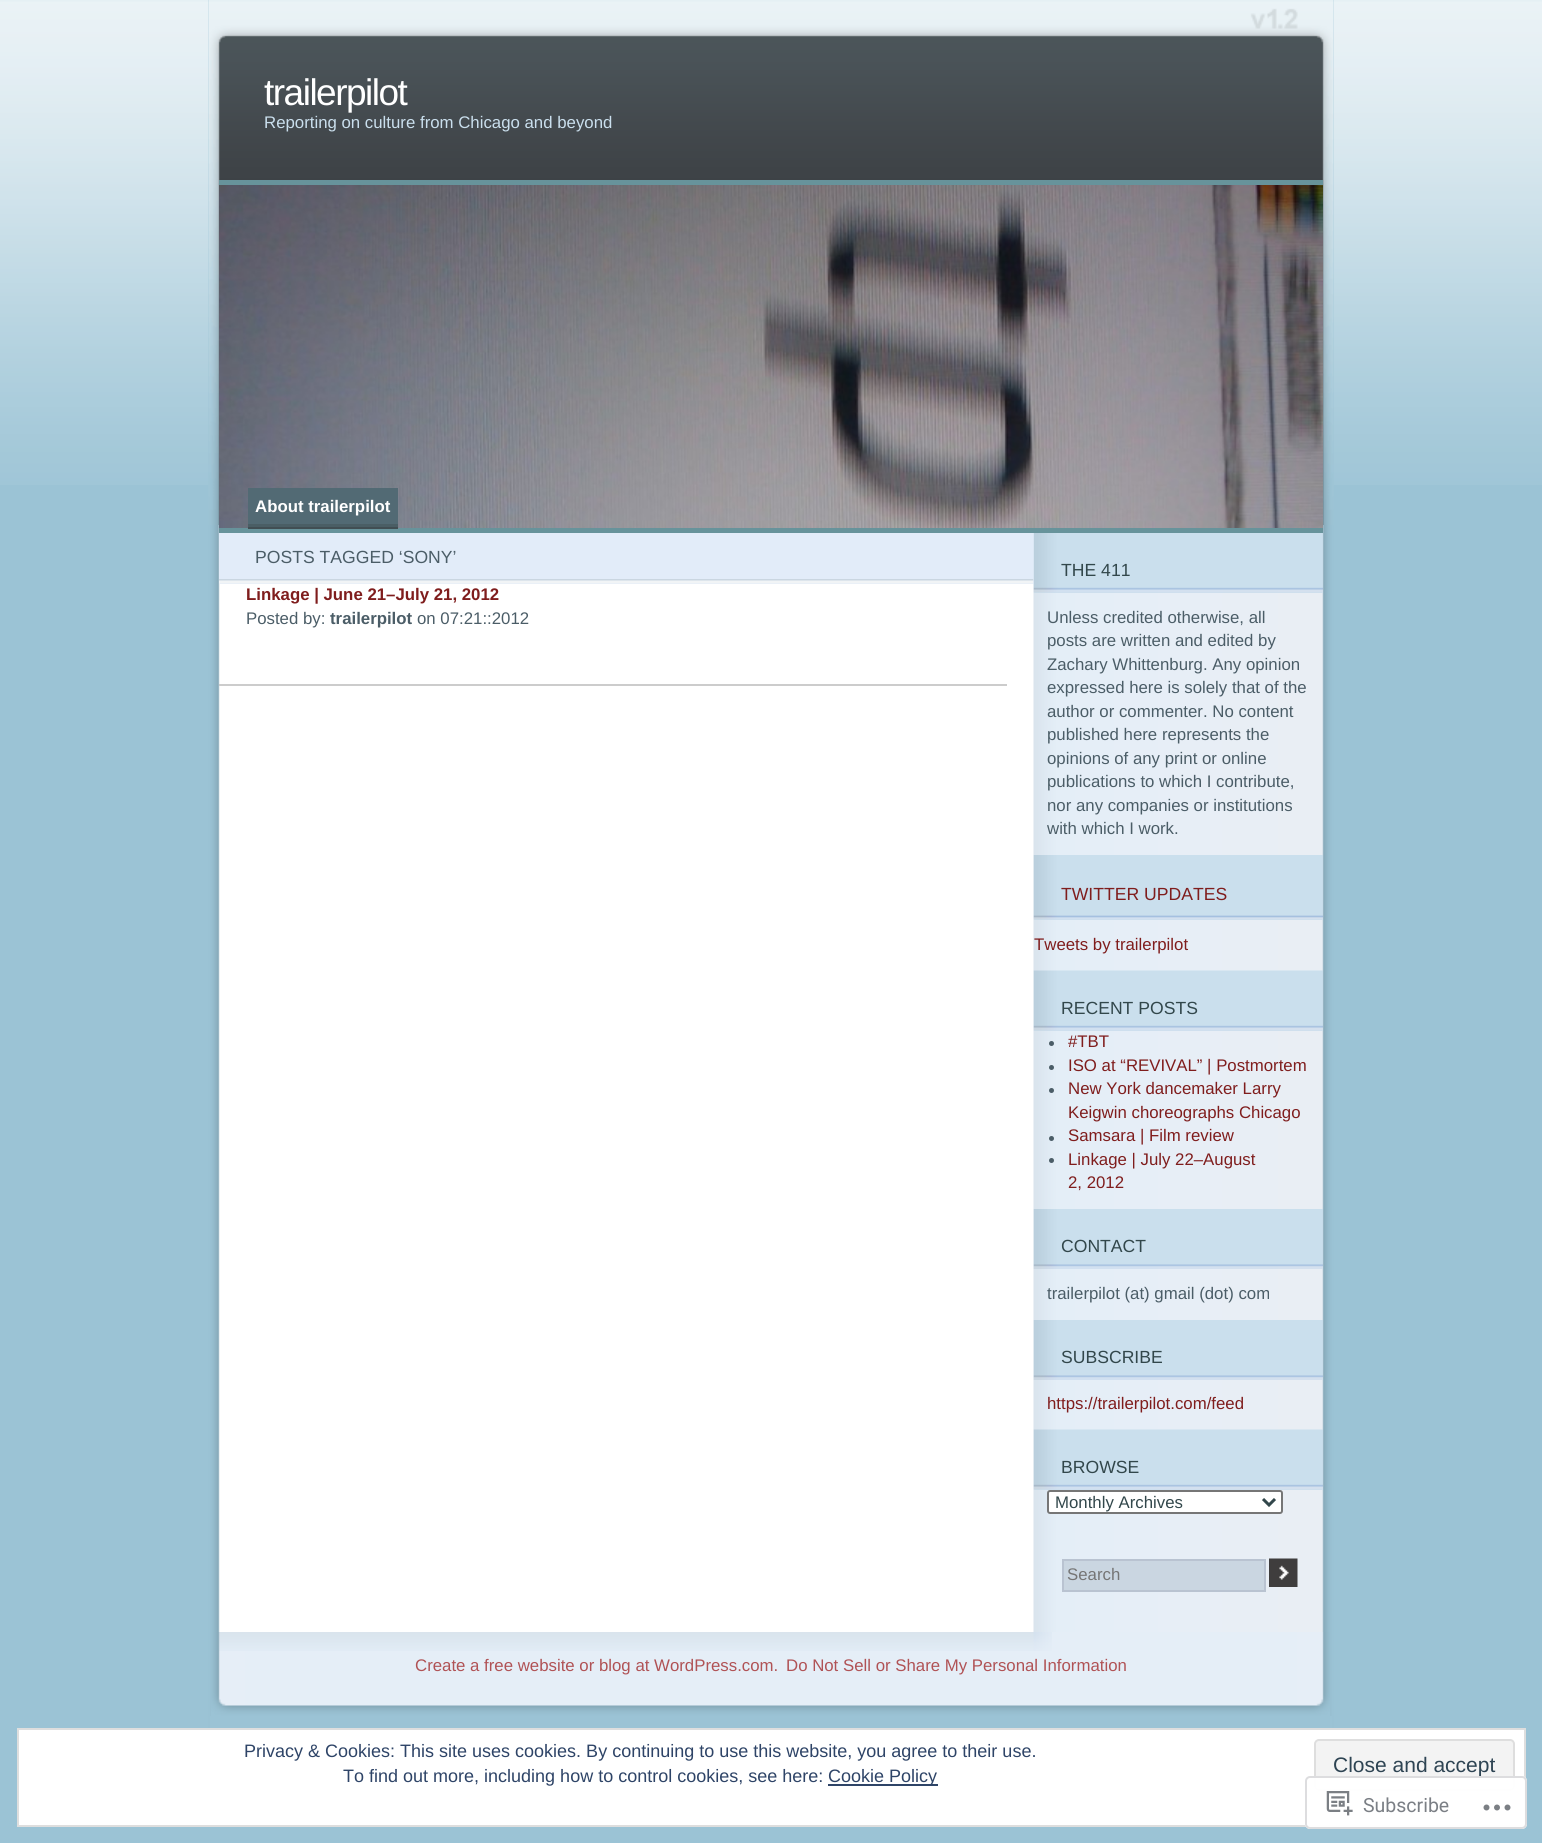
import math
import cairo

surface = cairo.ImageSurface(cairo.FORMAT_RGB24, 1542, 1843)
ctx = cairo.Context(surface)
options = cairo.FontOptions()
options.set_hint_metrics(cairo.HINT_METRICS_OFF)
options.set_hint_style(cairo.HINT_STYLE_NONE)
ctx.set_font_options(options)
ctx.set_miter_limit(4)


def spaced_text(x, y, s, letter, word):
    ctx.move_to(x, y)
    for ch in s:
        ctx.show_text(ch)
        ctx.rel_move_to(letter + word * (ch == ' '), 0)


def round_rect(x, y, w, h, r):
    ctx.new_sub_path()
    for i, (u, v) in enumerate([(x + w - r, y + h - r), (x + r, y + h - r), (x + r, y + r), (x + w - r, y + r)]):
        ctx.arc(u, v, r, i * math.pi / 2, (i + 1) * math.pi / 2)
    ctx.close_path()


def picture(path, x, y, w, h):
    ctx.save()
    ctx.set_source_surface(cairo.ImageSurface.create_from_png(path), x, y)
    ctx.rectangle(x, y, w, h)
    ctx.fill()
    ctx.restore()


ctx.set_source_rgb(0.608, 0.765, 0.835)
ctx.paint()
picture("img1.png", 0, 0, 1542, 485)
picture("img2.png", 208, 0, 1126, 1728)
picture("img3.png", 208, 0, 1126, 525)
ctx.select_font_face("Liberation Sans")
ctx.set_font_size(37)
ctx.set_source_rgb(1, 1, 1)
spaced_text(264, 105, "trailerpilot", -1.5, 0)
ctx.set_font_size(16.8)
ctx.set_source_rgb(0.792, 0.875, 0.929)
ctx.move_to(264, 128)
ctx.show_text("Reporting on culture from Chicago and beyond")
picture("img4.png", 219, 185, 1104, 343)
ctx.set_source_rgb(0.404, 0.576, 0.608)
ctx.rectangle(219, 180, 1104, 5)
ctx.fill()
ctx.rectangle(219, 528, 1104, 5)
ctx.fill()
ctx.set_source_rgb(0.255, 0.306, 0.325)
ctx.rectangle(248, 527, 150, 2)
ctx.fill()
ctx.set_source_rgb(0.322, 0.416, 0.455)
ctx.rectangle(248, 488, 150, 36)
ctx.fill()
ctx.set_source_rgb(0.29, 0.369, 0.396)
ctx.rectangle(248, 524, 150, 3)
ctx.fill()
ctx.select_font_face("Liberation Sans", cairo.FONT_SLANT_NORMAL, cairo.FONT_WEIGHT_BOLD)
ctx.set_source_rgb(1, 1, 1)
ctx.move_to(255, 512)
ctx.show_text("About trailerpilot")
ctx.set_source_rgb(0.886, 0.922, 0.973)
ctx.rectangle(219, 533, 815, 51)
ctx.fill()
picture("img5.png", 219, 579, 815, 5)
ctx.select_font_face("Liberation Sans")
ctx.set_font_size(17.6)
ctx.set_source_rgb(0.294, 0.365, 0.404)
ctx.move_to(255, 563)
ctx.show_text("POSTS TAGGED ‘SONY’")
ctx.set_source_rgb(0.8, 0.8, 0.8)
ctx.rectangle(219, 684, 788, 2)
ctx.fill()
ctx.select_font_face("Liberation Sans", cairo.FONT_SLANT_NORMAL, cairo.FONT_WEIGHT_BOLD)
ctx.set_font_size(16.8)
ctx.set_source_rgb(0.498, 0.114, 0.114)
ctx.move_to(246, 600)
ctx.show_text("Linkage | June 21–July 21, 2012")
ctx.select_font_face("Liberation Sans")
ctx.set_source_rgb(0.294, 0.365, 0.404)
ctx.move_to(246, 624)
ctx.show_text("Posted by:")
ctx.select_font_face("Liberation Sans", cairo.FONT_SLANT_NORMAL, cairo.FONT_WEIGHT_BOLD)
ctx.move_to(330, 624)
ctx.show_text("trailerpilot")
ctx.select_font_face("Liberation Sans")
ctx.move_to(417, 624)
ctx.show_text("on 07:21::2012")
ctx.set_source_rgb(0.792, 0.875, 0.929)
ctx.rectangle(1034, 592, 289, 1)
ctx.fill()
picture("img6.png", 1033, 533, 290, 60)
ctx.set_font_size(17.6)
ctx.set_source_rgb(0.196, 0.278, 0.294)
ctx.move_to(1061, 576)
ctx.show_text("THE 411")
ctx.set_font_size(16.8)
ctx.set_source_rgb(0.294, 0.365, 0.404)
ctx.move_to(1047, 623)
ctx.show_text("Unless credited otherwise, all")
ctx.move_to(1047, 646)
ctx.show_text("posts are written and edited by")
ctx.move_to(1047, 670)
ctx.show_text("Zachary Whittenburg. Any opinion")
ctx.move_to(1047, 693)
ctx.show_text("expressed here is solely that of the")
ctx.move_to(1047, 717)
ctx.show_text("author or commenter. No content")
ctx.move_to(1047, 740)
ctx.show_text("published here represents the")
ctx.move_to(1047, 764)
ctx.show_text("opinions of any print or online")
ctx.move_to(1047, 787)
ctx.show_text("publications to which I contribute,")
ctx.move_to(1047, 811)
ctx.show_text("nor any companies or institutions")
ctx.move_to(1047, 834)
ctx.show_text("with which I work.")
ctx.set_source_rgb(0.792, 0.875, 0.929)
ctx.rectangle(1034, 919, 289, 1)
ctx.fill()
picture("img7.png", 1033, 855, 290, 65)
ctx.set_font_size(17.6)
ctx.set_source_rgb(0.498, 0.114, 0.114)
ctx.move_to(1061, 900)
ctx.show_text("TWITTER UPDATES")
ctx.set_font_size(16.8)
ctx.move_to(1034, 950)
ctx.show_text("Tweets by trailerpilot")
ctx.set_source_rgb(0.792, 0.875, 0.929)
ctx.rectangle(1034, 1030, 289, 1)
ctx.fill()
picture("img8.png", 1033, 970, 290, 61)
ctx.set_font_size(17.6)
ctx.set_source_rgb(0.196, 0.278, 0.294)
ctx.move_to(1061, 1014)
ctx.show_text("RECENT POSTS")
ctx.set_source_rgb(0.294, 0.365, 0.404)
ctx.new_path()
ctx.arc(1051.5, 1043.5, 2.5, 0, 2 * math.pi)
ctx.fill()
ctx.set_font_size(16.8)
ctx.set_source_rgb(0.498, 0.114, 0.114)
ctx.move_to(1068, 1047)
ctx.show_text("#TBT")
ctx.set_source_rgb(0.294, 0.365, 0.404)
ctx.new_path()
ctx.arc(1051.5, 1067.5, 2.5, 0, 2 * math.pi)
ctx.fill()
ctx.set_source_rgb(0.498, 0.114, 0.114)
ctx.move_to(1068, 1071)
ctx.show_text("ISO at “REVIVAL” | Postmortem")
ctx.set_source_rgb(0.294, 0.365, 0.404)
ctx.new_path()
ctx.arc(1051.5, 1090.5, 2.5, 0, 2 * math.pi)
ctx.fill()
ctx.set_source_rgb(0.498, 0.114, 0.114)
ctx.move_to(1068, 1094)
ctx.show_text("New York dancemaker Larry")
ctx.move_to(1068, 1118)
ctx.show_text("Keigwin choreographs Chicago")
ctx.set_source_rgb(0.294, 0.365, 0.404)
ctx.new_path()
ctx.arc(1051.5, 1138.5, 2.5, 0, 2 * math.pi)
ctx.fill()
ctx.set_source_rgb(0.498, 0.114, 0.114)
ctx.move_to(1068, 1141)
ctx.show_text("Samsara | Film review")
ctx.set_source_rgb(0.294, 0.365, 0.404)
ctx.new_path()
ctx.arc(1051.5, 1160.5, 2.5, 0, 2 * math.pi)
ctx.fill()
ctx.set_source_rgb(0.498, 0.114, 0.114)
ctx.move_to(1068, 1165)
ctx.show_text("Linkage | July 22–August")
ctx.move_to(1068, 1188)
ctx.show_text("2, 2012")
picture("img9.png", 1033, 1209, 290, 60)
ctx.set_font_size(17.6)
ctx.set_source_rgb(0.196, 0.278, 0.294)
ctx.move_to(1061, 1252)
ctx.show_text("CONTACT")
ctx.set_font_size(16.8)
ctx.set_source_rgb(0.294, 0.365, 0.404)
ctx.move_to(1047, 1299)
ctx.show_text("trailerpilot (at) gmail (dot) com")
picture("img9.png", 1033, 1320, 290, 60)
ctx.set_font_size(17.6)
ctx.set_source_rgb(0.196, 0.278, 0.294)
ctx.move_to(1061, 1363)
ctx.show_text("SUBSCRIBE")
ctx.set_font_size(16.8)
ctx.set_source_rgb(0.498, 0.114, 0.114)
ctx.move_to(1047, 1409)
ctx.show_text("https://trailerpilot.com/feed")
ctx.set_source_rgb(0.792, 0.875, 0.929)
ctx.rectangle(1034, 1489, 289, 1)
ctx.fill()
picture("img10.png", 1033, 1429, 290, 61)
ctx.set_font_size(17.6)
ctx.set_source_rgb(0.196, 0.278, 0.294)
ctx.move_to(1061, 1473)
ctx.show_text("BROWSE")
ctx.set_source_rgb(1, 1, 1)
round_rect(1048, 1491, 234, 22, 2)
ctx.fill_preserve()
ctx.set_source_rgb(0.463, 0.463, 0.463)
ctx.stroke()
ctx.new_path()
ctx.move_to(1263, 1499)
ctx.line_to(1269, 1505)
ctx.line_to(1275, 1499)
ctx.set_source_rgb(0.196, 0.278, 0.294)
ctx.set_line_width(3)
ctx.stroke()
ctx.set_font_size(16.8)
ctx.move_to(1055, 1508)
ctx.show_text("Monthly Archives")
ctx.set_source_rgb(0.792, 0.839, 0.882)
ctx.rectangle(1063, 1560, 202, 31)
ctx.fill_preserve()
ctx.set_source_rgb(0.725, 0.765, 0.82)
ctx.set_line_width(2)
ctx.stroke()
ctx.set_source_rgb(0.459, 0.459, 0.459)
ctx.move_to(1067, 1580)
ctx.show_text("Search")
picture("img11.png", 1269, 1558, 29, 29)
picture("img12.png", 211, 1632, 1119, 84)
ctx.set_source_rgb(0.608, 0.765, 0.835)
ctx.rectangle(210, 1716, 1122, 12)
ctx.fill()
picture("img13.png", 219, 1632, 833, 19)
ctx.set_source_rgb(0.69, 0.322, 0.333)
ctx.move_to(415, 1671)
ctx.show_text("Create a free website or blog at WordPress.com.")
ctx.move_to(786, 1671)
ctx.show_text("Do Not Sell or Share My Personal Information")
ctx.set_source_rgb(1, 1, 1)
ctx.rectangle(18, 1729, 1507, 97)
ctx.fill_preserve()
ctx.set_source_rgb(0.871, 0.871, 0.871)
ctx.stroke()
ctx.set_font_size(18)
ctx.set_source_rgb(0.18, 0.267, 0.404)
ctx.move_to(244, 1757)
ctx.show_text("Privacy & Cookies: This site uses cookies. By continuing to use this website, you agree to their use.")
ctx.move_to(343, 1782)
ctx.show_text("To find out more, including how to control cookies, see here:")
ctx.rectangle(828, 1784, 110, 2)
ctx.fill()
ctx.move_to(828, 1782)
ctx.show_text("Cookie Policy")
ctx.set_source_rgb(0.953, 0.953, 0.953)
round_rect(1315, 1740, 199, 50, 4)
ctx.fill_preserve()
ctx.set_source_rgb(0.871, 0.871, 0.871)
ctx.stroke()
ctx.set_font_size(21)
ctx.set_source_rgb(0.18, 0.267, 0.325)
ctx.move_to(1333, 1772)
ctx.show_text("Close and accept")
ctx.set_source_rgba(1, 1, 1, 0.98)
round_rect(1305, 1776, 222, 53, 5)
ctx.fill()
round_rect(1306, 1777, 220, 51, 4)
ctx.set_source_rgba(0.863, 0.863, 0.871, 0.98)
ctx.stroke()
picture("img14.png", 1326, 1791, 27, 25)
ctx.select_font_face("Roboto")
ctx.set_font_size(19.5)
ctx.set_source_rgb(0.482, 0.498, 0.522)
ctx.move_to(1363, 1812)
ctx.show_text("Subscribe")
picture("img15.png", 1483, 1804, 28, 7)
surface.write_to_png("page.png")
